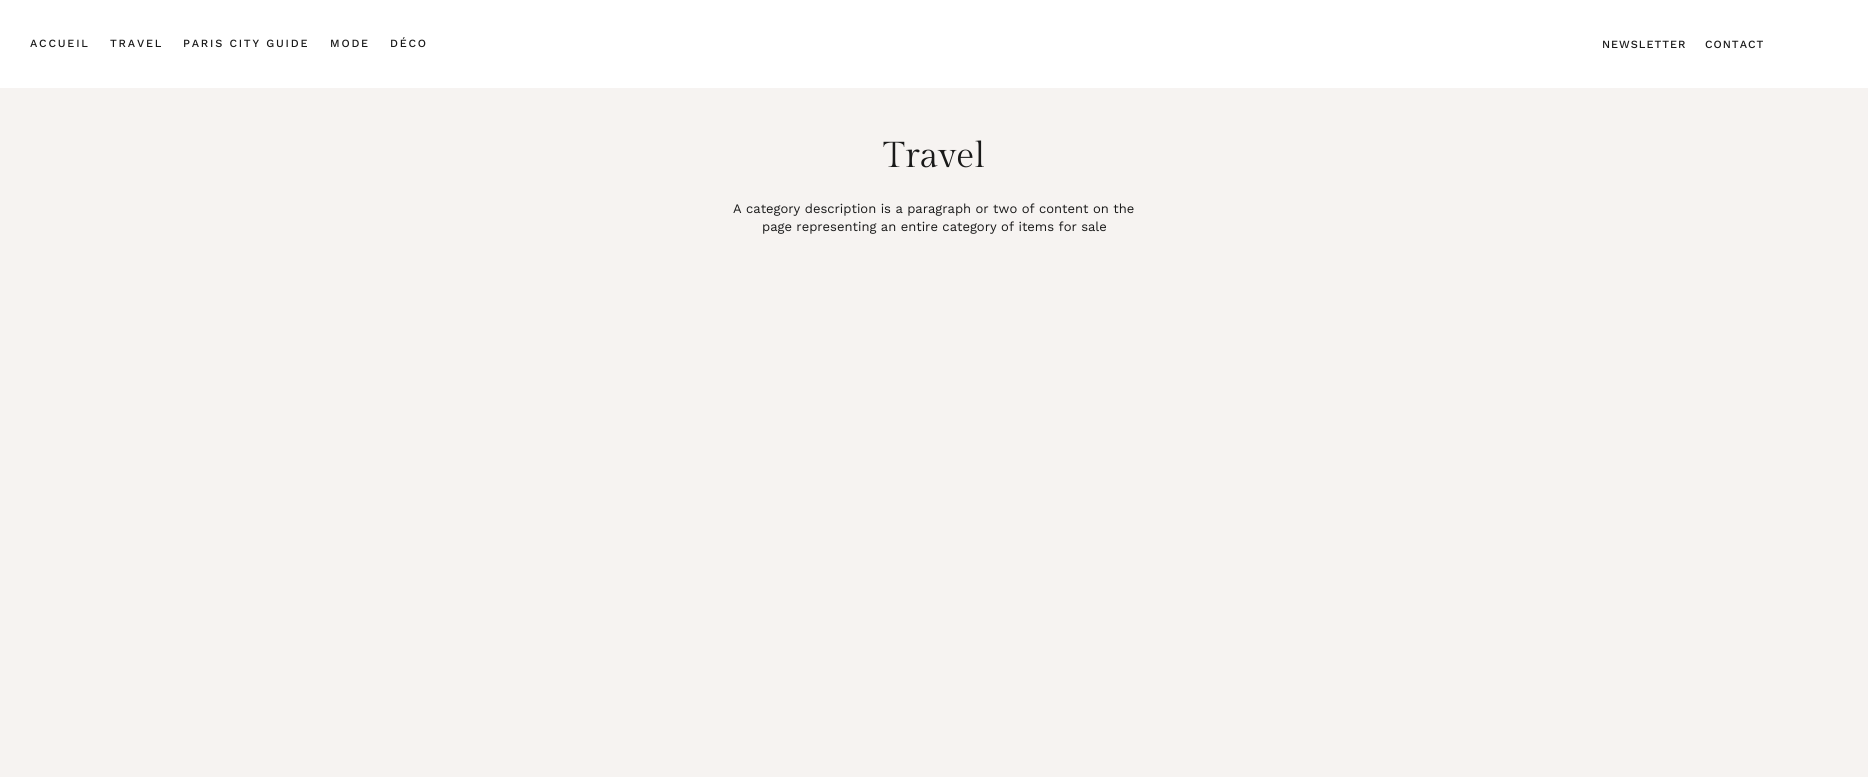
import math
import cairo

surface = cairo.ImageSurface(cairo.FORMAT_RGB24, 1868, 777)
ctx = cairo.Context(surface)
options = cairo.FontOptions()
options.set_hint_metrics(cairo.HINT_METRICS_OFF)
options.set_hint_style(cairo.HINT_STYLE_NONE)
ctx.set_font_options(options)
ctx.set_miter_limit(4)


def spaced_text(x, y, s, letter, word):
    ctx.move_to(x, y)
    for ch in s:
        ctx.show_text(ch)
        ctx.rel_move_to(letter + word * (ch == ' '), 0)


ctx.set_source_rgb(0.961, 0.953, 0.945)
ctx.paint()
ctx.set_source_rgb(1, 1, 1)
ctx.rectangle(0, 0, 1868, 88)
ctx.fill()
ctx.select_font_face("Work Sans Medium")
ctx.set_font_size(11)
ctx.set_source_rgb(0.098, 0.098, 0.098)
spaced_text(30, 47, "ACCUEIL", 1.8, 0)
spaced_text(110, 47, "TRAVEL", 1.8, 0)
spaced_text(183, 47, "PARIS CITY GUIDE", 1.8, 0)
spaced_text(330, 47, "MODE", 1.8, 0)
spaced_text(390, 47, "DÉCO", 1.8, 0)
spaced_text(1602, 48, "NEWSLETTER", 1, 0)
spaced_text(1705, 48, "CONTACT", 1, 0)
ctx.select_font_face("Gilda Display")
ctx.set_font_size(36)
ctx.move_to(883, 167)
ctx.show_text("Travel")
ctx.select_font_face("Work Sans")
ctx.set_font_size(13)
ctx.move_to(733, 213)
ctx.show_text("A category description is a paragraph or two of content on the")
ctx.move_to(762, 231)
ctx.show_text("page representing an entire category of items for sale")
surface.write_to_png("page.png")
